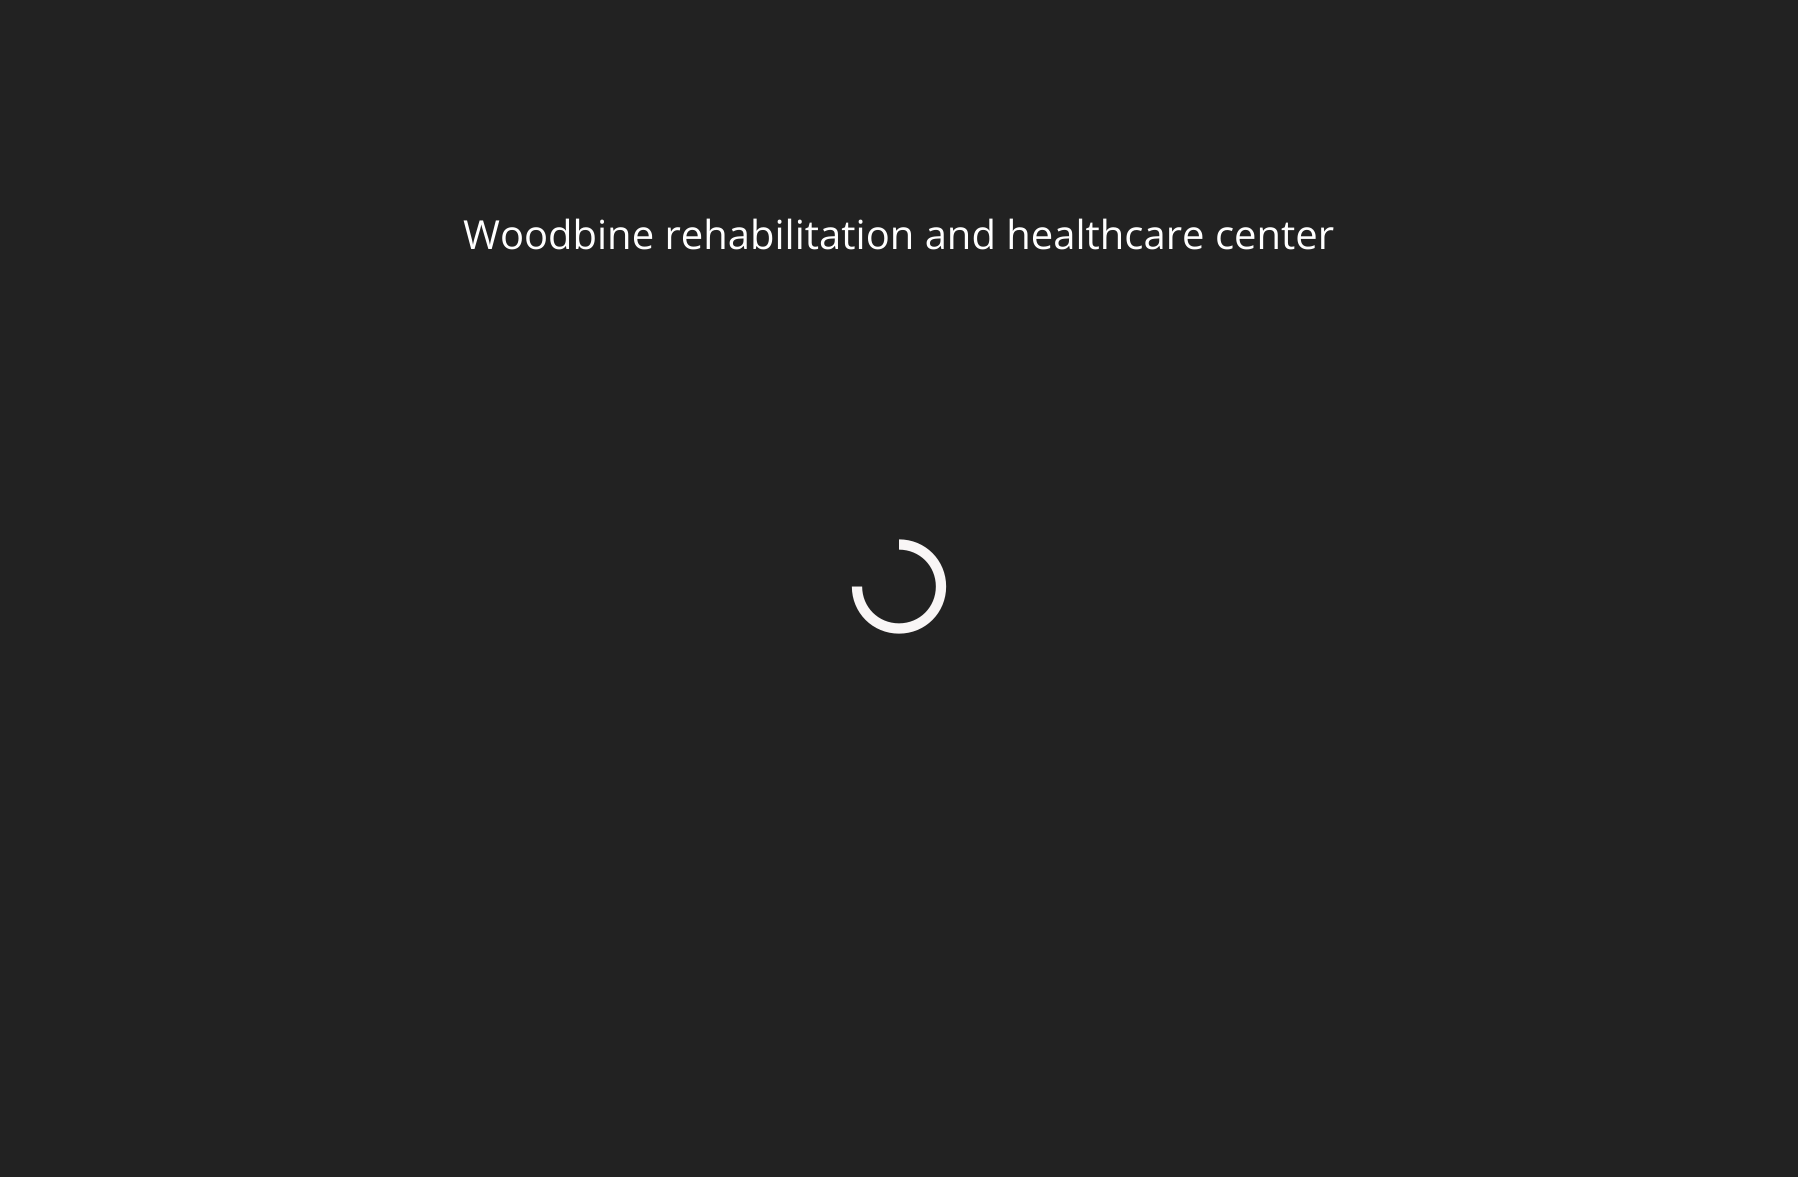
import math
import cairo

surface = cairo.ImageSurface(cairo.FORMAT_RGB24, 1798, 1177)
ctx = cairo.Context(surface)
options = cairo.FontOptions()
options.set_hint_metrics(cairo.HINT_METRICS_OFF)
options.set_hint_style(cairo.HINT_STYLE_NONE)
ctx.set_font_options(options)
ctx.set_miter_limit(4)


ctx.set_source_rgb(0.133, 0.133, 0.133)
ctx.paint()
ctx.select_font_face("Open Sans")
ctx.set_font_size(40)
ctx.set_source_rgb(1, 1, 1)
ctx.move_to(463, 249)
ctx.show_text("Woodbine rehabilitation and healthcare center")
ctx.new_path()
ctx.move_to(899, 544.5)
ctx.curve_to(922.5, 544.5, 941, 563, 941, 586.5)
ctx.curve_to(941, 610, 922.5, 628.5, 899, 628.5)
ctx.curve_to(875.5, 628.5, 857, 610, 857, 586.5)
ctx.set_source_rgb(0.973, 0.961, 0.961)
ctx.set_line_width(10.3)
ctx.stroke()
surface.write_to_png("page.png")
